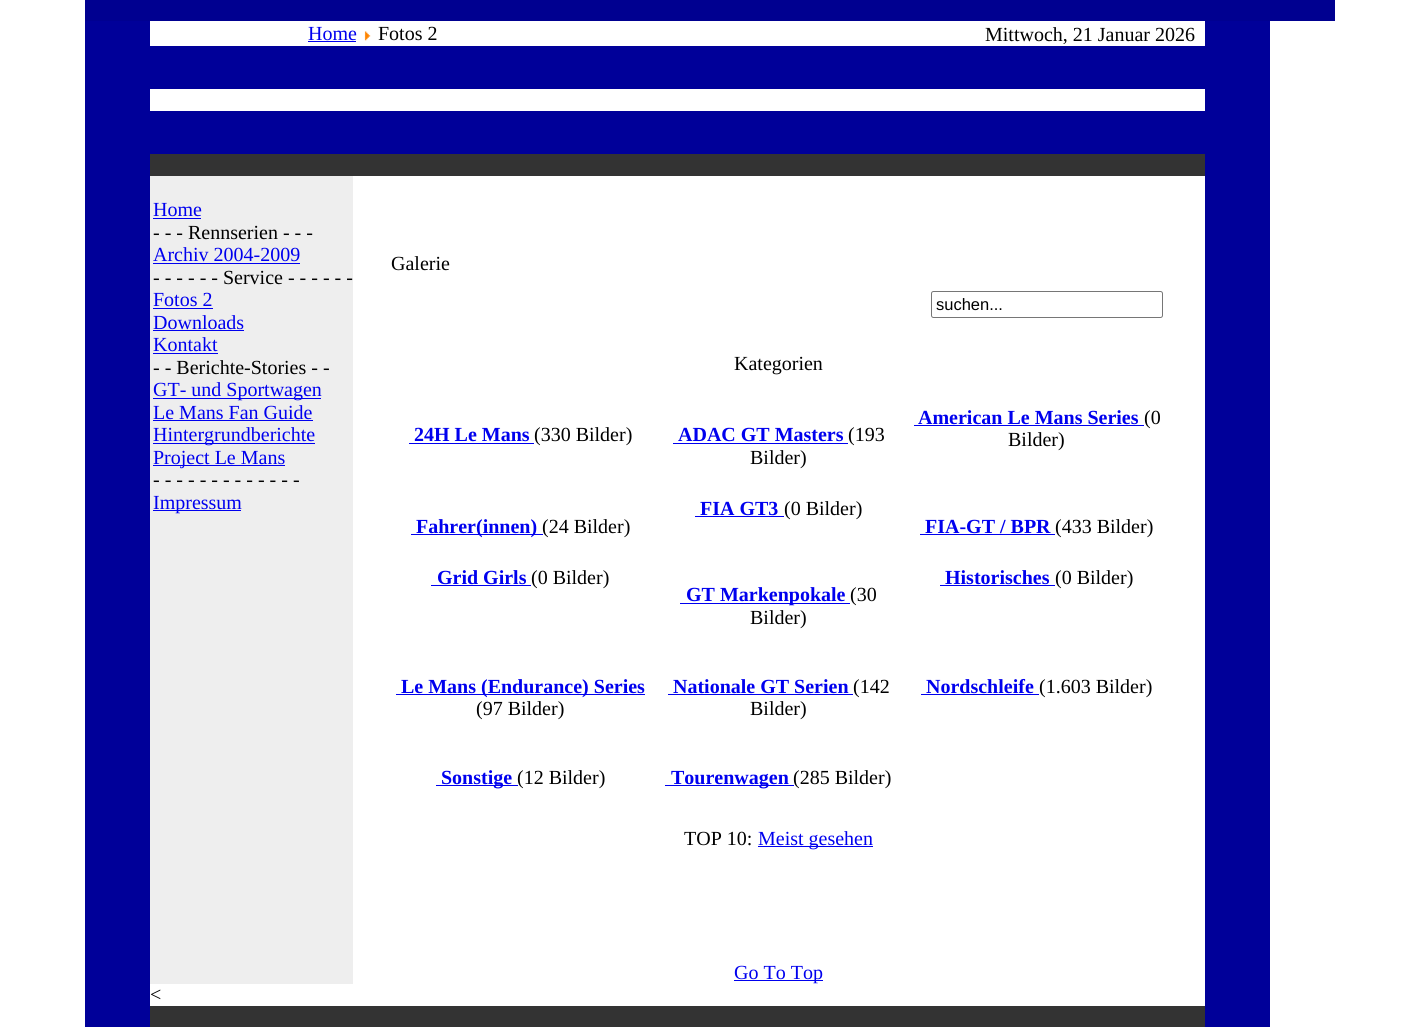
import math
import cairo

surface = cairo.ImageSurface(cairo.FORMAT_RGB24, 1419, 1027)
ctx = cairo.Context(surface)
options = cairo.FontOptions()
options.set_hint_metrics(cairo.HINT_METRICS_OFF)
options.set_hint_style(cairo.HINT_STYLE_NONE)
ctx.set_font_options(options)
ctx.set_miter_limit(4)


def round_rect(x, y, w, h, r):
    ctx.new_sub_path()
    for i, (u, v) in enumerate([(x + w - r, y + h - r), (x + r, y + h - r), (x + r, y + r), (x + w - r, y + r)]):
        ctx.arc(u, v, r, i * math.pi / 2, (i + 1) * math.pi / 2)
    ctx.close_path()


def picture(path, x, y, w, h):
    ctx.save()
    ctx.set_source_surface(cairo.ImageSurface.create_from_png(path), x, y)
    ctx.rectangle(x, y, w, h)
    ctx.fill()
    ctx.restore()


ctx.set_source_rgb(1, 1, 1)
ctx.paint()
ctx.set_source_rgb(0, 0, 0.565)
ctx.rectangle(85, 0, 1250, 21)
ctx.fill()
ctx.set_source_rgb(0, 0, 0.6)
ctx.rectangle(85, 21, 65, 1006)
ctx.fill()
ctx.select_font_face("Liberation Serif")
ctx.set_font_size(20)
ctx.set_source_rgb(0, 0, 0.933)
ctx.move_to(308, 40)
ctx.show_text("Home")
ctx.rectangle(308, 41, 48, 1)
ctx.fill()
picture("img1.png", 364, 31, 7, 10)
ctx.set_source_rgb(0, 0, 0)
ctx.move_to(378, 40)
ctx.show_text("Fotos 2")
ctx.move_to(985, 41)
ctx.show_text("Mittwoch, 21 Januar 2026")
ctx.set_source_rgb(0, 0, 0.6)
ctx.rectangle(150, 46, 1055, 43)
ctx.fill()
ctx.rectangle(150, 111, 1055, 43)
ctx.fill()
ctx.set_source_rgb(0.2, 0.2, 0.2)
ctx.rectangle(150, 154, 1055, 22)
ctx.fill()
ctx.set_source_rgb(0.933, 0.933, 0.933)
ctx.rectangle(150, 176, 203, 808)
ctx.fill()
ctx.set_source_rgb(0, 0, 0.933)
ctx.move_to(153, 216)
ctx.show_text("Home")
ctx.rectangle(153, 218, 48, 1)
ctx.fill()
ctx.set_source_rgb(0, 0, 0)
ctx.move_to(153, 239)
ctx.show_text("- - - Rennserien - - -")
ctx.set_source_rgb(0, 0, 0.933)
ctx.move_to(153, 261)
ctx.show_text("Archiv 2004-2009")
ctx.rectangle(153, 263, 147, 1)
ctx.fill()
ctx.set_source_rgb(0, 0, 0)
ctx.move_to(153, 284)
ctx.show_text("- - - - - - Service - - - - - -")
ctx.set_source_rgb(0, 0, 0.933)
ctx.move_to(153, 306)
ctx.show_text("Fotos 2")
ctx.rectangle(153, 308, 60, 1)
ctx.fill()
ctx.move_to(153, 329)
ctx.show_text("Downloads")
ctx.rectangle(153, 330, 91, 1)
ctx.fill()
ctx.move_to(153, 351)
ctx.show_text("Kontakt")
ctx.rectangle(153, 353, 65, 1)
ctx.fill()
ctx.set_source_rgb(0, 0, 0)
ctx.move_to(153, 374)
ctx.show_text("- - Berichte-Stories - -")
ctx.set_source_rgb(0, 0, 0.933)
ctx.rectangle(153, 398, 168, 1)
ctx.fill()
ctx.move_to(153, 396)
ctx.show_text("GT- und Sportwagen")
ctx.move_to(153, 419)
ctx.show_text("Le Mans Fan Guide")
ctx.rectangle(153, 420, 160, 1)
ctx.fill()
ctx.rectangle(153, 443, 162, 1)
ctx.fill()
ctx.move_to(153, 441)
ctx.show_text("Hintergrundberichte")
ctx.rectangle(153, 465, 132, 1)
ctx.fill()
ctx.move_to(153, 464)
ctx.show_text("Project Le Mans")
ctx.set_source_rgb(0, 0, 0)
ctx.move_to(153, 486)
ctx.show_text("- - - - - - - - - - - - -")
ctx.set_source_rgb(0, 0, 0.933)
ctx.rectangle(153, 510, 88, 1)
ctx.fill()
ctx.move_to(153, 509)
ctx.show_text("Impressum")
ctx.set_source_rgb(0, 0, 0)
ctx.move_to(391, 270)
ctx.show_text("Galerie")
round_rect(931.5, 291.5, 231, 26, 2)
ctx.set_source_rgb(0.463, 0.463, 0.463)
ctx.set_line_width(1)
ctx.stroke()
ctx.select_font_face("Liberation Sans")
ctx.set_font_size(16.5)
ctx.set_source_rgb(0, 0, 0)
ctx.move_to(936, 310)
ctx.show_text("suchen...")
ctx.select_font_face("Liberation Serif")
ctx.set_font_size(20)
ctx.move_to(734, 370)
ctx.show_text("Kategorien")
ctx.select_font_face("Liberation Serif", cairo.FONT_SLANT_NORMAL, cairo.FONT_WEIGHT_BOLD)
ctx.set_source_rgb(0, 0, 0.933)
ctx.move_to(414, 441)
ctx.show_text("24H Le Mans")
ctx.rectangle(409, 443, 125, 1)
ctx.fill()
ctx.select_font_face("Liberation Serif")
ctx.set_source_rgb(0, 0, 0)
ctx.move_to(534, 441)
ctx.show_text("(330 Bilder)")
ctx.select_font_face("Liberation Serif", cairo.FONT_SLANT_NORMAL, cairo.FONT_WEIGHT_BOLD)
ctx.set_source_rgb(0, 0, 0.933)
ctx.move_to(678, 441)
ctx.show_text("ADAC GT Masters")
ctx.rectangle(673, 443, 175, 1)
ctx.fill()
ctx.select_font_face("Liberation Serif")
ctx.set_source_rgb(0, 0, 0)
ctx.move_to(848, 441)
ctx.show_text("(193")
ctx.move_to(750, 464)
ctx.show_text("Bilder)")
ctx.select_font_face("Liberation Serif", cairo.FONT_SLANT_NORMAL, cairo.FONT_WEIGHT_BOLD)
ctx.set_source_rgb(0, 0, 0.933)
ctx.move_to(918, 424)
ctx.show_text("American Le Mans Series")
ctx.rectangle(914, 425, 230, 1)
ctx.fill()
ctx.select_font_face("Liberation Serif")
ctx.set_source_rgb(0, 0, 0)
ctx.move_to(1144, 424)
ctx.show_text("(0")
ctx.move_to(1008, 446)
ctx.show_text("Bilder)")
ctx.select_font_face("Liberation Serif", cairo.FONT_SLANT_NORMAL, cairo.FONT_WEIGHT_BOLD)
ctx.set_source_rgb(0, 0, 0.933)
ctx.move_to(700, 515)
ctx.show_text("FIA GT3")
ctx.rectangle(695, 516, 89, 1)
ctx.fill()
ctx.select_font_face("Liberation Serif")
ctx.set_source_rgb(0, 0, 0)
ctx.move_to(784, 515)
ctx.show_text("(0 Bilder)")
ctx.set_source_rgb(0, 0, 0.933)
ctx.rectangle(411, 534, 132, 1)
ctx.fill()
ctx.select_font_face("Liberation Serif", cairo.FONT_SLANT_NORMAL, cairo.FONT_WEIGHT_BOLD)
ctx.move_to(416, 533)
ctx.show_text("Fahrer(innen)")
ctx.select_font_face("Liberation Serif")
ctx.set_source_rgb(0, 0, 0)
ctx.move_to(542, 533)
ctx.show_text("(24 Bilder)")
ctx.select_font_face("Liberation Serif", cairo.FONT_SLANT_NORMAL, cairo.FONT_WEIGHT_BOLD)
ctx.set_source_rgb(0, 0, 0.933)
ctx.move_to(925, 533)
ctx.show_text("FIA-GT / BPR")
ctx.rectangle(920, 534, 135, 1)
ctx.fill()
ctx.select_font_face("Liberation Serif")
ctx.set_source_rgb(0, 0, 0)
ctx.move_to(1055, 533)
ctx.show_text("(433 Bilder)")
ctx.select_font_face("Liberation Serif", cairo.FONT_SLANT_NORMAL, cairo.FONT_WEIGHT_BOLD)
ctx.set_source_rgb(0, 0, 0.933)
ctx.move_to(437, 584)
ctx.show_text("Grid Girls")
ctx.rectangle(431, 585, 100, 1)
ctx.fill()
ctx.select_font_face("Liberation Serif")
ctx.set_source_rgb(0, 0, 0)
ctx.move_to(531, 584)
ctx.show_text("(0 Bilder)")
ctx.select_font_face("Liberation Serif", cairo.FONT_SLANT_NORMAL, cairo.FONT_WEIGHT_BOLD)
ctx.set_source_rgb(0, 0, 0.933)
ctx.move_to(945, 584)
ctx.show_text("Historisches")
ctx.rectangle(940, 585, 115, 1)
ctx.fill()
ctx.select_font_face("Liberation Serif")
ctx.set_source_rgb(0, 0, 0)
ctx.move_to(1055, 584)
ctx.show_text("(0 Bilder)")
ctx.set_source_rgb(0, 0, 0.933)
ctx.rectangle(680, 603, 170, 1)
ctx.fill()
ctx.select_font_face("Liberation Serif", cairo.FONT_SLANT_NORMAL, cairo.FONT_WEIGHT_BOLD)
ctx.move_to(686, 601)
ctx.show_text("GT Markenpokale")
ctx.select_font_face("Liberation Serif")
ctx.set_source_rgb(0, 0, 0)
ctx.move_to(850, 601)
ctx.show_text("(30")
ctx.move_to(750, 624)
ctx.show_text("Bilder)")
ctx.set_source_rgb(0, 0, 0.933)
ctx.rectangle(396, 694, 249, 1)
ctx.fill()
ctx.select_font_face("Liberation Serif", cairo.FONT_SLANT_NORMAL, cairo.FONT_WEIGHT_BOLD)
ctx.move_to(401, 693)
ctx.show_text("Le Mans (Endurance) Series")
ctx.select_font_face("Liberation Serif")
ctx.set_source_rgb(0, 0, 0)
ctx.move_to(476, 715)
ctx.show_text("(97 Bilder)")
ctx.select_font_face("Liberation Serif", cairo.FONT_SLANT_NORMAL, cairo.FONT_WEIGHT_BOLD)
ctx.set_source_rgb(0, 0, 0.933)
ctx.move_to(673, 693)
ctx.show_text("Nationale GT Serien")
ctx.rectangle(668, 694, 185, 1)
ctx.fill()
ctx.select_font_face("Liberation Serif")
ctx.set_source_rgb(0, 0, 0)
ctx.move_to(853, 693)
ctx.show_text("(142")
ctx.move_to(750, 715)
ctx.show_text("Bilder)")
ctx.select_font_face("Liberation Serif", cairo.FONT_SLANT_NORMAL, cairo.FONT_WEIGHT_BOLD)
ctx.set_source_rgb(0, 0, 0.933)
ctx.move_to(926, 693)
ctx.show_text("Nordschleife")
ctx.rectangle(921, 694, 118, 1)
ctx.fill()
ctx.select_font_face("Liberation Serif")
ctx.set_source_rgb(0, 0, 0)
ctx.move_to(1039, 693)
ctx.show_text("(1.603 Bilder)")
ctx.set_source_rgb(0, 0, 0.933)
ctx.rectangle(436, 785, 82, 1)
ctx.fill()
ctx.select_font_face("Liberation Serif", cairo.FONT_SLANT_NORMAL, cairo.FONT_WEIGHT_BOLD)
ctx.move_to(441, 784)
ctx.show_text("Sonstige")
ctx.select_font_face("Liberation Serif")
ctx.set_source_rgb(0, 0, 0)
ctx.move_to(517, 784)
ctx.show_text("(12 Bilder)")
ctx.set_source_rgb(0, 0, 0.933)
ctx.rectangle(665, 785, 129, 1)
ctx.fill()
ctx.select_font_face("Liberation Serif", cairo.FONT_SLANT_NORMAL, cairo.FONT_WEIGHT_BOLD)
ctx.move_to(671, 784)
ctx.show_text("Tourenwagen")
ctx.select_font_face("Liberation Serif")
ctx.set_source_rgb(0, 0, 0)
ctx.move_to(793, 784)
ctx.show_text("(285 Bilder)")
ctx.move_to(684, 845)
ctx.show_text("TOP 10:")
ctx.set_source_rgb(0, 0, 0.933)
ctx.rectangle(758, 846, 115, 1)
ctx.fill()
ctx.move_to(758, 845)
ctx.show_text("Meist gesehen")
ctx.rectangle(734, 980, 89, 1)
ctx.fill()
ctx.move_to(734, 979)
ctx.show_text("Go To Top")
ctx.set_source_rgb(0, 0, 0)
ctx.move_to(150, 1001)
ctx.show_text("<")
ctx.set_source_rgb(0.2, 0.2, 0.2)
ctx.rectangle(150, 1006, 1055, 21)
ctx.fill()
ctx.set_source_rgb(0, 0, 0.6)
ctx.rectangle(1205, 21, 65, 1006)
ctx.fill()
surface.write_to_png("page.png")
